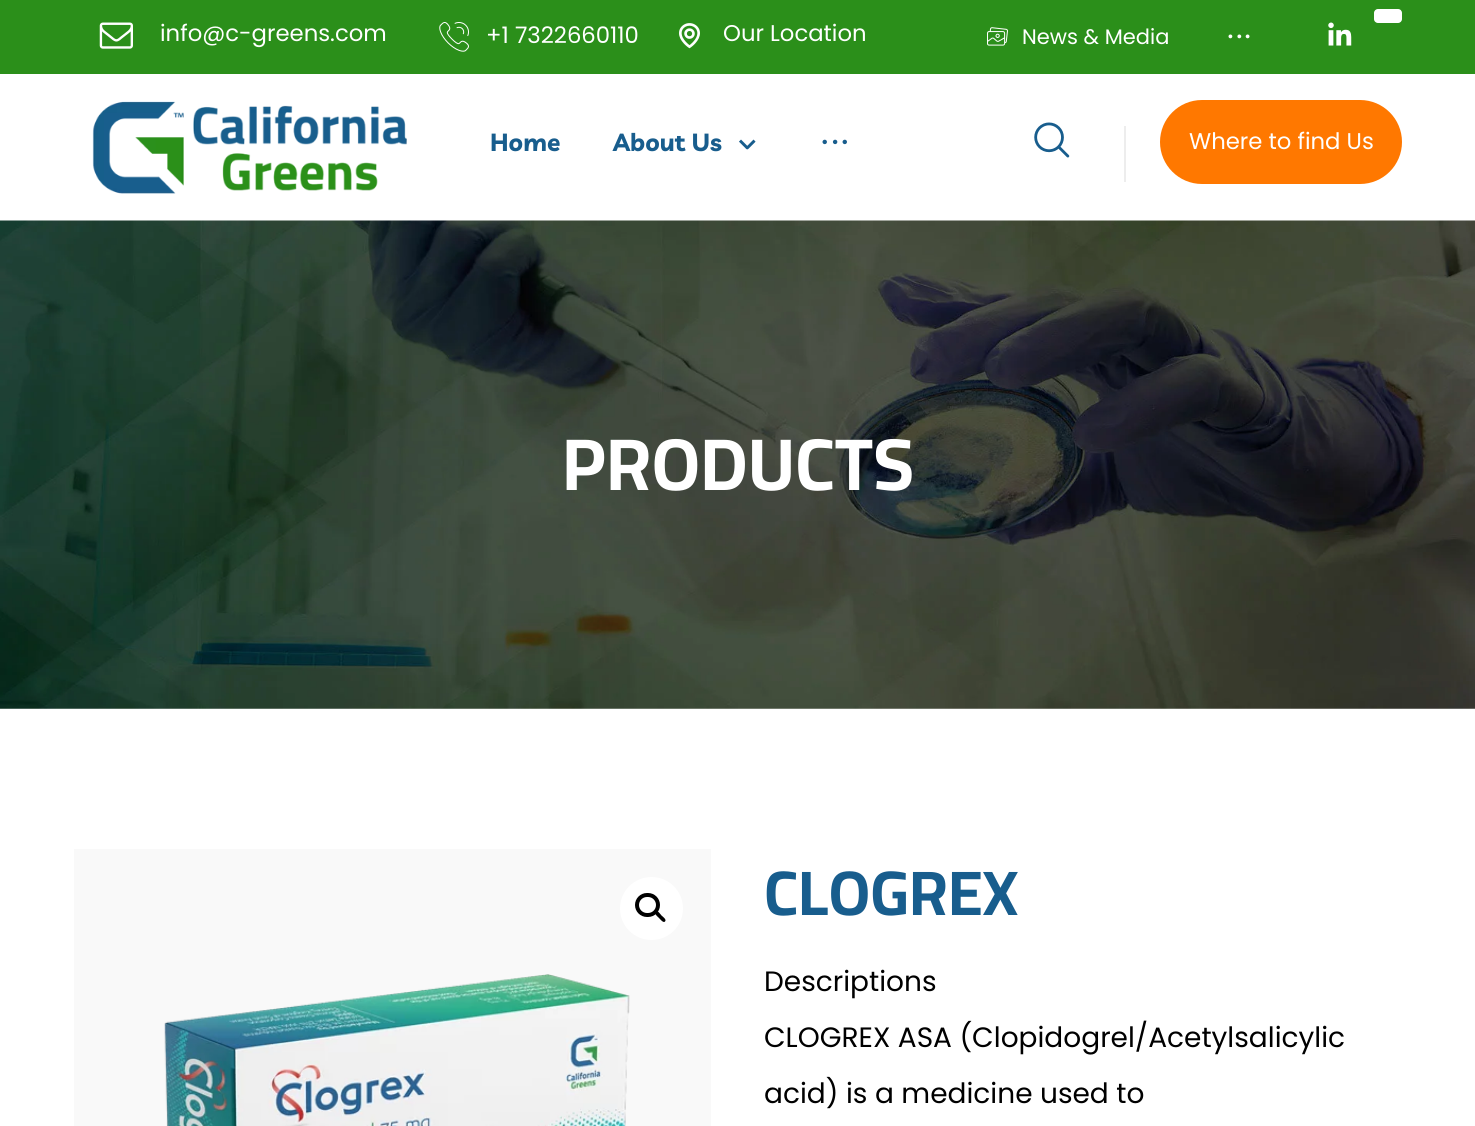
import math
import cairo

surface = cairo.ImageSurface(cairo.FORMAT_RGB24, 1475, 1126)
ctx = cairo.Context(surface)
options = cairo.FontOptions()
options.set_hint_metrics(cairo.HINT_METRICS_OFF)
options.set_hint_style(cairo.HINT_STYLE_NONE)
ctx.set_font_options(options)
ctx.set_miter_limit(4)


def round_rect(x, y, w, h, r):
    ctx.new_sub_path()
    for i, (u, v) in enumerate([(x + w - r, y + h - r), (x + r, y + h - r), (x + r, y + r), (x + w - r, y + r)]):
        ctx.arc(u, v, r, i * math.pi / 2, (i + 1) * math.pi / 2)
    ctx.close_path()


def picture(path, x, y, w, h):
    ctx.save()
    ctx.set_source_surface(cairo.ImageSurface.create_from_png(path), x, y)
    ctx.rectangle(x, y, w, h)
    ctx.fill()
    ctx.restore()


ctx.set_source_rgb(1, 1, 1)
ctx.paint()
ctx.set_source_rgb(0.169, 0.561, 0.102)
ctx.rectangle(0, 0, 1475, 74)
ctx.fill()
picture("img1.png", 99, 22, 34, 27)
ctx.select_font_face("Poppins")
ctx.set_font_size(22.75)
ctx.set_source_rgb(1, 1, 1)
ctx.move_to(160, 41)
ctx.show_text("info@c-greens.com")
picture("img2.png", 439, 22, 30, 30)
ctx.move_to(486, 43)
ctx.show_text("+1 7322660110")
picture("img3.png", 679, 23, 21, 26)
ctx.move_to(723, 41)
ctx.show_text("Our Location")
round_rect(1374, 9, 28, 14, 4)
ctx.fill()
picture("img4.png", 987, 27, 21, 19)
ctx.set_font_size(21)
ctx.move_to(1022, 44)
ctx.show_text("News & Media")
picture("img5.png", 1228, 34, 22, 5)
picture("img6.png", 1328, 22, 24, 24)
picture("img7.png", 92, 101, 315, 93)
ctx.select_font_face("Livvic", cairo.FONT_SLANT_NORMAL, cairo.FONT_WEIGHT_BOLD)
ctx.set_font_size(24.5)
ctx.set_source_rgb(0.094, 0.365, 0.553)
ctx.move_to(490, 151)
ctx.show_text("Home")
ctx.move_to(613, 151)
ctx.show_text("About Us")
picture("img8.png", 739, 139, 17, 11)
picture("img9.png", 822, 139, 25, 6)
picture("img10.png", 1034, 122, 36, 36)
ctx.set_source_rgb(0.929, 0.929, 0.929)
ctx.rectangle(1124, 126, 2, 56)
ctx.fill()
ctx.set_source_rgb(1, 0.471, 0)
round_rect(1160, 100, 242, 84, 42)
ctx.fill()
ctx.select_font_face("Poppins")
ctx.set_font_size(22.75)
ctx.set_source_rgb(1, 1, 1)
ctx.move_to(1189, 149)
ctx.show_text("Where to find Us")
picture("img11.png", 0, 220, 1475, 489)
ctx.select_font_face("Cairo", cairo.FONT_SLANT_NORMAL, cairo.FONT_WEIGHT_BOLD)
ctx.set_font_size(73.5)
ctx.move_to(562, 490)
ctx.show_text("PRODUCTS")
ctx.set_source_rgb(0.976, 0.976, 0.976)
ctx.rectangle(74, 849, 637, 277)
ctx.fill()
picture("img12.png", 164, 974, 466, 152)
ctx.set_source_rgb(1, 1, 1)
ctx.arc(651.5, 908.5, 31.5, 0, 2 * math.pi)
ctx.fill()
round_rect(637, 895, 21, 20, 10)
ctx.set_source_rgb(0, 0, 0)
ctx.set_line_width(4)
ctx.stroke()
ctx.new_path()
ctx.move_to(655.5, 911.5)
ctx.curve_to(657.5, 909.5, 660.5, 914.5, 661.5, 915.5)
ctx.curve_to(662.5, 916.5, 667, 919.5, 665, 921.5)
ctx.curve_to(663.5, 923.5, 660, 919, 659, 918)
ctx.curve_to(658, 917, 653.5, 913.5, 655.5, 911.5)
ctx.close_path()
ctx.fill()
ctx.set_font_size(63)
ctx.set_source_rgb(0.094, 0.365, 0.553)
ctx.move_to(764, 915)
ctx.show_text("CLOGREX")
ctx.select_font_face("Poppins")
ctx.set_font_size(28)
ctx.set_source_rgb(0, 0, 0)
ctx.move_to(764, 991)
ctx.show_text("Descriptions")
ctx.move_to(764, 1047)
ctx.show_text("CLOGREX ASA (Clopidogrel/Acetylsalicylic")
ctx.move_to(764, 1103)
ctx.show_text("acid) is a medicine used to")
surface.write_to_png("page.png")
